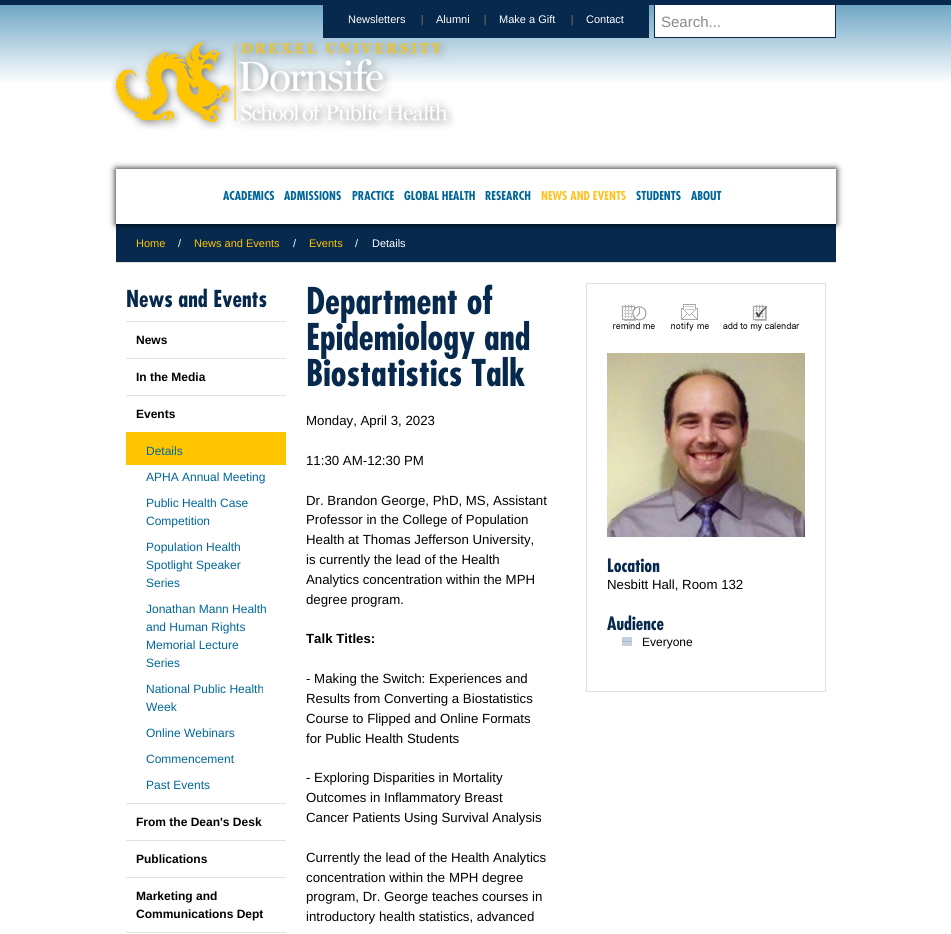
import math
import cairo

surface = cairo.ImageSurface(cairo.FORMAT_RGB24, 951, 934)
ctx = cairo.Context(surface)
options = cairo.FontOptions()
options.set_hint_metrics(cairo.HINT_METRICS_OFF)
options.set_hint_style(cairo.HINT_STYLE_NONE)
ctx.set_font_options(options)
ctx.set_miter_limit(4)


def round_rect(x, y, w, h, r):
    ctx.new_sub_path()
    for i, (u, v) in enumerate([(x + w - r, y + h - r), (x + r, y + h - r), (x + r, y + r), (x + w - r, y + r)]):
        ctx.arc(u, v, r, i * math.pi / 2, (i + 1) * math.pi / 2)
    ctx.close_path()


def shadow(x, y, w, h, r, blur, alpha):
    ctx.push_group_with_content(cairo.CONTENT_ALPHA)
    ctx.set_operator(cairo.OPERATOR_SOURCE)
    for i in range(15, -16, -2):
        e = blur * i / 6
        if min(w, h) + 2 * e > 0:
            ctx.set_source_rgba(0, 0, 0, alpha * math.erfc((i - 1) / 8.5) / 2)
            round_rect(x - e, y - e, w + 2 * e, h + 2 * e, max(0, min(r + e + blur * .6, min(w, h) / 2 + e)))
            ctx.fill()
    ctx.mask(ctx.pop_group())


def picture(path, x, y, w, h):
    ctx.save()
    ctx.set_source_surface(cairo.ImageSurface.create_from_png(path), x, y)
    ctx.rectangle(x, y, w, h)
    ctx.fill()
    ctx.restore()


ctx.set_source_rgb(1, 1, 1)
ctx.paint()
gradient = cairo.LinearGradient(476, 0, 476, 418)
gradient.add_color_stop_rgba(0, 0.4, 0.631, 0.761, 1)
gradient.add_color_stop_rgba(0.2, 1, 1, 1, 1)
ctx.set_source(gradient)
ctx.rectangle(0, 5, 951, 77)
ctx.fill()
ctx.set_source_rgb(0.027, 0.161, 0.302)
ctx.rectangle(0, 0, 951, 5)
ctx.fill()
ctx.rectangle(323, 5, 326, 33)
ctx.fill()
ctx.select_font_face("Liberation Sans")
ctx.set_font_size(11)
ctx.set_source_rgb(1, 1, 1)
ctx.move_to(348, 23)
ctx.show_text("Newsletters")
picture("img1.png", 421, 15, 2, 11)
ctx.move_to(436, 23)
ctx.show_text("Alumni")
picture("img2.png", 484, 15, 2, 11)
ctx.move_to(499, 23)
ctx.show_text("Make a Gift")
picture("img2.png", 571, 15, 2, 11)
ctx.move_to(586, 23)
ctx.show_text("Contact")
ctx.set_source_rgb(0.027, 0.161, 0.302)
ctx.rectangle(654, 5, 182, 33)
ctx.fill()
ctx.set_source_rgb(1, 1, 1)
ctx.rectangle(655, 5, 180, 32)
ctx.fill()
ctx.set_font_size(15)
ctx.set_source_rgb(0.533, 0.533, 0.533)
ctx.move_to(661, 27)
ctx.show_text("Search...")
picture("img3.png", 111, 39, 343, 91)
ctx.set_source_rgb(0.027, 0.161, 0.302)
ctx.rectangle(116, 224, 720, 38)
ctx.fill()
ctx.save()
ctx.set_fill_rule(cairo.FILL_RULE_EVEN_ODD)
ctx.new_path()
ctx.move_to(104, 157)
ctx.line_to(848, 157)
ctx.line_to(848, 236)
ctx.line_to(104, 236)
ctx.close_path()
ctx.move_to(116, 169)
ctx.line_to(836, 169)
ctx.line_to(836, 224)
ctx.line_to(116, 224)
ctx.close_path()
ctx.clip()
ctx.set_source_rgb(0, 0, 0)
shadow(116, 169, 720, 55, 0, 3.5, 1)
ctx.restore()
ctx.select_font_face("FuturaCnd", cairo.FONT_SLANT_NORMAL, cairo.FONT_WEIGHT_BOLD)
ctx.set_font_size(12)
ctx.set_source_rgb(0, 0.4, 0.6)
ctx.move_to(223, 200)
ctx.show_text("ACADEMICS")
ctx.move_to(284, 200)
ctx.show_text("ADMISSIONS")
ctx.move_to(352, 200)
ctx.show_text("PRACTICE")
ctx.move_to(404, 200)
ctx.show_text("GLOBAL HEALTH")
ctx.move_to(485, 200)
ctx.show_text("RESEARCH")
ctx.set_source_rgb(1, 0.765, 0.145)
ctx.move_to(541, 200)
ctx.show_text("NEWS AND EVENTS")
ctx.set_source_rgb(0, 0.4, 0.6)
ctx.move_to(636, 200)
ctx.show_text("STUDENTS")
ctx.move_to(691, 200)
ctx.show_text("ABOUT")
ctx.set_source_rgb(0.882, 0.882, 0.878)
ctx.rectangle(116, 262, 720, 1)
ctx.fill()
ctx.select_font_face("Liberation Sans")
ctx.set_font_size(11)
ctx.set_source_rgb(1, 0.776, 0)
ctx.move_to(136, 247)
ctx.show_text("Home")
ctx.set_source_rgb(1, 1, 1)
ctx.move_to(178, 247)
ctx.show_text("/")
ctx.set_source_rgb(1, 0.776, 0)
ctx.move_to(194, 247)
ctx.show_text("News and Events")
ctx.set_source_rgb(1, 1, 1)
ctx.move_to(293, 247)
ctx.show_text("/")
ctx.set_source_rgb(1, 0.776, 0)
ctx.move_to(309, 247)
ctx.show_text("Events")
ctx.set_source_rgb(1, 1, 1)
ctx.move_to(355, 247)
ctx.show_text("/")
ctx.move_to(372, 247)
ctx.show_text("Details")
ctx.select_font_face("FuturaCnd", cairo.FONT_SLANT_NORMAL, cairo.FONT_WEIGHT_BOLD)
ctx.set_font_size(22.75)
ctx.set_source_rgb(0.027, 0.161, 0.302)
ctx.move_to(126, 307)
ctx.show_text("News and Events")
ctx.set_source_rgb(0.882, 0.882, 0.878)
ctx.rectangle(126, 321, 160, 1)
ctx.fill()
ctx.rectangle(126, 358, 160, 1)
ctx.fill()
ctx.select_font_face("Liberation Sans", cairo.FONT_SLANT_NORMAL, cairo.FONT_WEIGHT_BOLD)
ctx.set_font_size(12)
ctx.set_source_rgb(0, 0, 0)
ctx.move_to(136, 344)
ctx.show_text("News")
ctx.set_source_rgb(0.882, 0.882, 0.878)
ctx.rectangle(126, 395, 160, 1)
ctx.fill()
ctx.set_source_rgb(0, 0, 0)
ctx.move_to(136, 381)
ctx.show_text("In the Media")
ctx.set_source_rgb(0.882, 0.882, 0.878)
ctx.rectangle(126, 803, 160, 1)
ctx.fill()
ctx.set_source_rgb(0, 0, 0)
ctx.move_to(136, 418)
ctx.show_text("Events")
ctx.set_source_rgb(1, 0.776, 0)
ctx.rectangle(126, 432, 160, 33)
ctx.fill()
ctx.select_font_face("Liberation Sans")
ctx.set_source_rgb(0, 0.4, 0.6)
ctx.move_to(146, 455)
ctx.show_text("Details")
ctx.move_to(146, 481)
ctx.show_text("APHA Annual Meeting")
ctx.move_to(146, 507)
ctx.show_text("Public Health Case")
ctx.move_to(146, 525)
ctx.show_text("Competition")
ctx.move_to(146, 551)
ctx.show_text("Population Health")
ctx.move_to(146, 569)
ctx.show_text("Spotlight Speaker")
ctx.move_to(146, 587)
ctx.show_text("Series")
ctx.move_to(146, 613)
ctx.show_text("Jonathan Mann Health")
ctx.move_to(146, 631)
ctx.show_text("and Human Rights")
ctx.move_to(146, 649)
ctx.show_text("Memorial Lecture")
ctx.move_to(146, 667)
ctx.show_text("Series")
ctx.move_to(146, 693)
ctx.show_text("National Public Health")
ctx.move_to(146, 711)
ctx.show_text("Week")
ctx.move_to(146, 737)
ctx.show_text("Online Webinars")
ctx.move_to(146, 763)
ctx.show_text("Commencement")
ctx.move_to(146, 789)
ctx.show_text("Past Events")
ctx.set_source_rgb(0.882, 0.882, 0.878)
ctx.rectangle(126, 840, 160, 1)
ctx.fill()
ctx.select_font_face("Liberation Sans", cairo.FONT_SLANT_NORMAL, cairo.FONT_WEIGHT_BOLD)
ctx.set_source_rgb(0, 0, 0)
ctx.move_to(136, 826)
ctx.show_text("From the Dean's Desk")
ctx.set_source_rgb(0.882, 0.882, 0.878)
ctx.rectangle(126, 877, 160, 1)
ctx.fill()
ctx.set_source_rgb(0, 0, 0)
ctx.move_to(136, 863)
ctx.show_text("Publications")
ctx.set_source_rgb(0.882, 0.882, 0.878)
ctx.rectangle(126, 932, 160, 1)
ctx.fill()
ctx.set_source_rgb(0, 0, 0)
ctx.move_to(136, 900)
ctx.show_text("Marketing and")
ctx.move_to(136, 918)
ctx.show_text("Communications Dept")
ctx.select_font_face("FuturaCnd", cairo.FONT_SLANT_NORMAL, cairo.FONT_WEIGHT_BOLD)
ctx.set_font_size(36)
ctx.set_source_rgb(0.027, 0.161, 0.302)
ctx.move_to(306, 314)
ctx.show_text("Department of")
ctx.move_to(306, 350)
ctx.show_text("Epidemiology and")
ctx.move_to(306, 386)
ctx.show_text("Biostatistics Talk")
ctx.select_font_face("Liberation Sans")
ctx.set_font_size(13.25)
ctx.set_source_rgb(0, 0, 0)
ctx.move_to(306, 425)
ctx.show_text("Monday, April 3, 2023")
ctx.move_to(306, 465)
ctx.show_text("11:30 AM-12:30 PM")
ctx.move_to(306, 505)
ctx.show_text("Dr. Brandon George, PhD, MS, Assistant")
ctx.move_to(306, 524)
ctx.show_text("Professor in the College of Population")
ctx.move_to(306, 544)
ctx.show_text("Health at Thomas Jefferson University,")
ctx.move_to(306, 564)
ctx.show_text("is currently the lead of the Health")
ctx.move_to(306, 584)
ctx.show_text("Analytics concentration within the MPH")
ctx.move_to(306, 604)
ctx.show_text("degree program.")
ctx.select_font_face("Liberation Sans", cairo.FONT_SLANT_NORMAL, cairo.FONT_WEIGHT_BOLD)
ctx.move_to(306, 643)
ctx.show_text("Talk Titles:")
ctx.select_font_face("Liberation Sans")
ctx.move_to(306, 683)
ctx.show_text("- Making the Switch: Experiences and")
ctx.move_to(306, 703)
ctx.show_text("Results from Converting a Biostatistics")
ctx.move_to(306, 723)
ctx.show_text("Course to Flipped and Online Formats")
ctx.move_to(306, 743)
ctx.show_text("for Public Health Students")
ctx.move_to(306, 782)
ctx.show_text("- Exploring Disparities in Mortality")
ctx.move_to(306, 802)
ctx.show_text("Outcomes in Inflammatory Breast")
ctx.move_to(306, 822)
ctx.show_text("Cancer Patients Using Survival Analysis")
ctx.move_to(306, 862)
ctx.show_text("Currently the lead of the Health Analytics")
ctx.move_to(306, 882)
ctx.show_text("concentration within the MPH degree")
ctx.move_to(306, 901)
ctx.show_text("program, Dr. George teaches courses in")
ctx.move_to(306, 921)
ctx.show_text("introductory health statistics, advanced")
ctx.rectangle(586.5, 283.5, 239, 408)
ctx.set_source_rgb(0.878, 0.878, 0.878)
ctx.set_line_width(1)
ctx.stroke()
picture("img4.png", 613, 304, 42, 25)
picture("img5.png", 671, 304, 38, 27)
picture("img6.png", 723, 304, 77, 27)
picture("img7.png", 607, 353, 198, 184)
ctx.select_font_face("FuturaCnd", cairo.FONT_SLANT_NORMAL, cairo.FONT_WEIGHT_BOLD)
ctx.set_font_size(18)
ctx.set_source_rgb(0.027, 0.161, 0.302)
ctx.move_to(607, 572)
ctx.show_text("Location")
ctx.select_font_face("Liberation Sans")
ctx.set_font_size(13.25)
ctx.set_source_rgb(0, 0, 0)
ctx.move_to(607, 589)
ctx.show_text("Nesbitt Hall, Room 132")
ctx.select_font_face("FuturaCnd", cairo.FONT_SLANT_NORMAL, cairo.FONT_WEIGHT_BOLD)
ctx.set_font_size(18)
ctx.set_source_rgb(0.027, 0.161, 0.302)
ctx.move_to(607, 630)
ctx.show_text("Audience")
picture("img8.png", 622, 637, 10, 9)
ctx.select_font_face("Liberation Sans")
ctx.set_font_size(12)
ctx.set_source_rgb(0, 0, 0)
ctx.move_to(642, 646)
ctx.show_text("Everyone")
surface.write_to_png("page.png")
